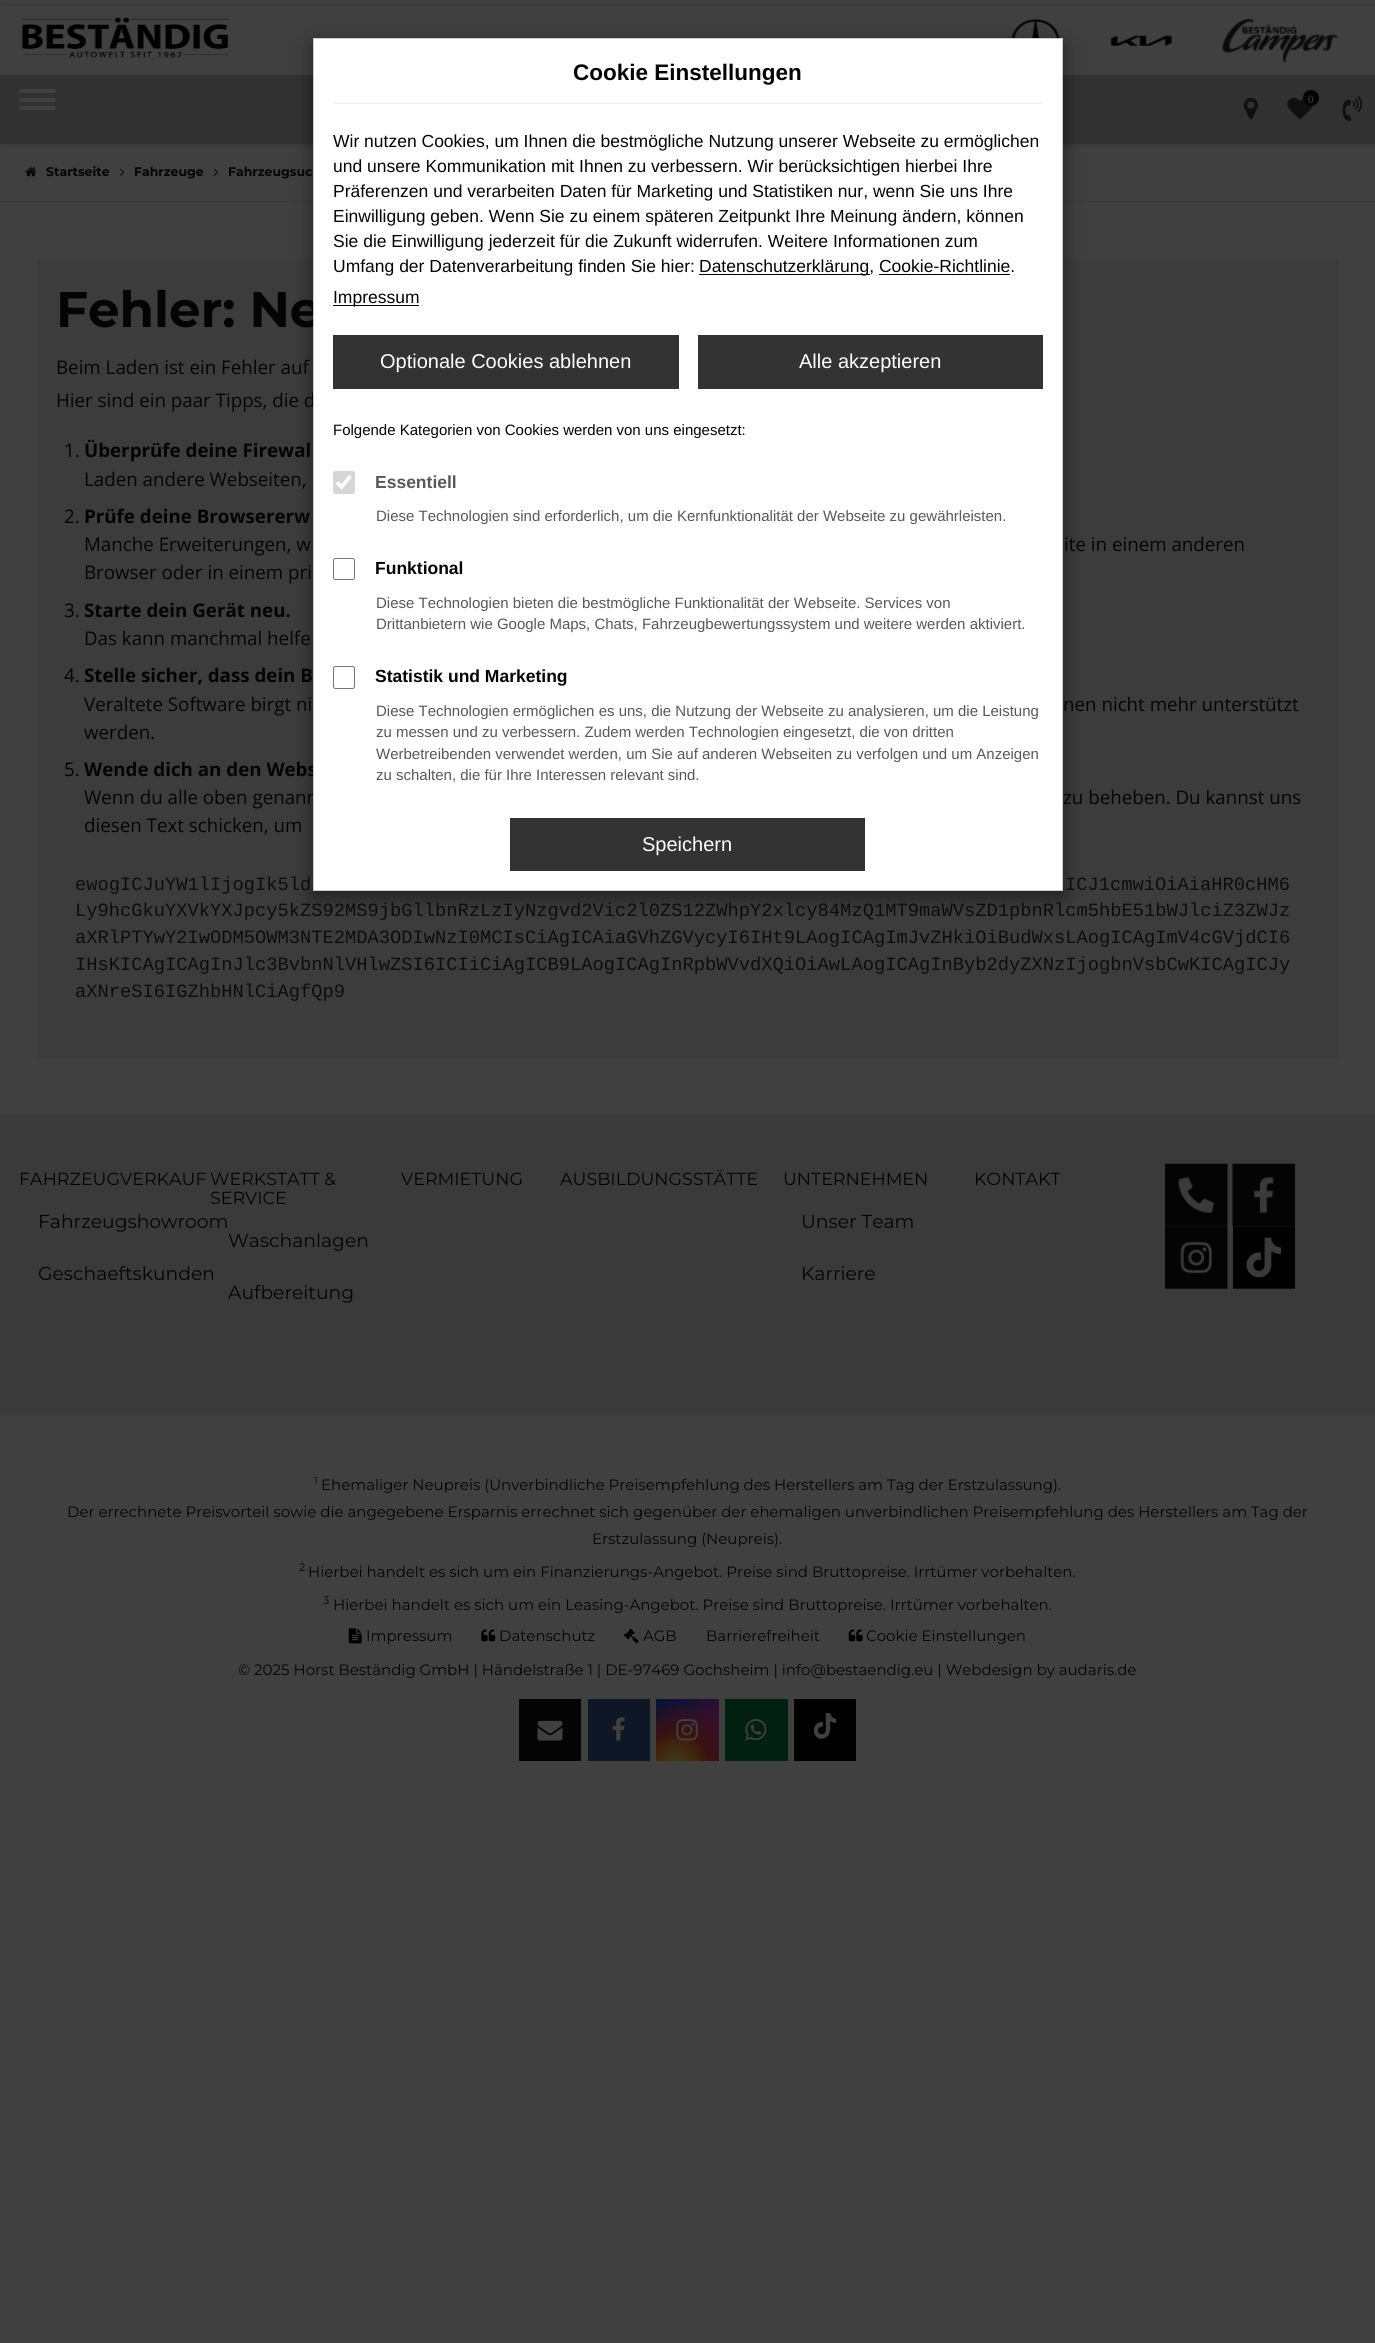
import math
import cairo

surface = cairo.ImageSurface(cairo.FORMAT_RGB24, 1375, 2343)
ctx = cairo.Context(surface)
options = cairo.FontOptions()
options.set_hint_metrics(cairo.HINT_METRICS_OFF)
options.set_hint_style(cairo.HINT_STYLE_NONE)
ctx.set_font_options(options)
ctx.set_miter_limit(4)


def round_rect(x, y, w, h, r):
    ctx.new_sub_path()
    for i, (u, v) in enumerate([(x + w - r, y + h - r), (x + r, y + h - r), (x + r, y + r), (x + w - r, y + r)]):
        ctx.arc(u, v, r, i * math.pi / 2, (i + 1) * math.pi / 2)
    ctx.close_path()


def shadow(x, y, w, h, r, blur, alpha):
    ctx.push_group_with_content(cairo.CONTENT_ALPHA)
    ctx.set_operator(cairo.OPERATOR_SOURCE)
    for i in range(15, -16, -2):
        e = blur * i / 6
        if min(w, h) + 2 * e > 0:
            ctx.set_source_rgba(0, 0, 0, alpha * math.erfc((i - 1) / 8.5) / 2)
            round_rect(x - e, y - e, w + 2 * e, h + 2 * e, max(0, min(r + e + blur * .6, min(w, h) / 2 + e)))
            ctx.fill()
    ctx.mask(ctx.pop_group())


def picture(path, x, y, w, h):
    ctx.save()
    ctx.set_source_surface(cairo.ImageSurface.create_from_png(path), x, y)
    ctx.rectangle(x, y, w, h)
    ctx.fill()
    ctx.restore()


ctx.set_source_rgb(0.251, 0.251, 0.251)
ctx.paint()
ctx.set_source_rgb(0, 0, 0)
shadow(1, 6, 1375, 138, 0, 3, 0.25)
ctx.set_source_rgb(0.251, 0.251, 0.251)
ctx.rectangle(0, 6, 1375, 69)
ctx.fill()
picture("img2.png", 1011, 18, 49, 20)
ctx.set_source_rgb(0.192, 0.192, 0.192)
ctx.rectangle(0, 75, 1375, 69)
ctx.fill()
ctx.set_source_rgb(0.235, 0.235, 0.235)
ctx.rectangle(0, 201, 1375, 1)
ctx.fill()
ctx.rectangle(38, 259, 1300, 799)
ctx.fill()
ctx.set_source_rgb(0, 0, 0)
shadow(313, 44, 750, 854, 0, 9.5, 0.5)
ctx.select_font_face("Montserrat Thin")
ctx.set_font_size(50)
ctx.set_source_rgb(0.016, 0.016, 0.016)
ctx.move_to(56, 327)
ctx.show_text("Fehler: Ne")
ctx.select_font_face("Open Sans")
ctx.set_font_size(18.75)
ctx.move_to(56, 407)
ctx.show_text("Hier sind ein paar Tipps, die d")
ctx.select_font_face("Open Sans", cairo.FONT_SLANT_NORMAL, cairo.FONT_WEIGHT_BOLD)
ctx.move_to(84, 776)
ctx.show_text("Wende dich an den Webs")
ctx.select_font_face("Open Sans")
ctx.move_to(84, 804)
ctx.show_text("Wenn du alle oben genann")
ctx.set_source_rgb(1, 1, 1)
ctx.rectangle(313.5, 38.5, 749, 852)
ctx.fill_preserve()
ctx.set_source_rgb(0.8, 0.8, 0.8)
ctx.set_line_width(1)
ctx.stroke()
ctx.set_source_rgb(0.933, 0.933, 0.933)
ctx.rectangle(333, 103, 710, 1)
ctx.fill()
ctx.select_font_face("Liberation Sans", cairo.FONT_SLANT_NORMAL, cairo.FONT_WEIGHT_BOLD)
ctx.set_font_size(22.5)
ctx.set_source_rgb(0.016, 0.016, 0.016)
ctx.move_to(573, 80)
ctx.show_text("Cookie Einstellungen")
ctx.select_font_face("Liberation Sans")
ctx.set_font_size(17.5)
ctx.move_to(333, 147)
ctx.show_text("Wir nutzen Cookies, um Ihnen die bestmögliche Nutzung unserer Webseite zu ermöglichen")
ctx.move_to(333, 172)
ctx.show_text("und unsere Kommunikation mit Ihnen zu verbessern. Wir berücksichtigen hierbei Ihre")
ctx.move_to(333, 197)
ctx.show_text("Präferenzen und verarbeiten Daten für Marketing und Statistiken nur, wenn Sie uns Ihre")
ctx.move_to(333, 222)
ctx.show_text("Einwilligung geben. Wenn Sie zu einem späteren Zeitpunkt Ihre Meinung ändern, können")
ctx.move_to(333, 247)
ctx.show_text("Sie die Einwilligung jederzeit für die Zukunft widerrufen. Weitere Informationen zum")
ctx.move_to(333, 272)
ctx.show_text("Umfang der Datenverarbeitung finden Sie hier:")
ctx.set_source_rgb(0, 0, 0)
ctx.rectangle(699, 274, 171, 1)
ctx.fill()
ctx.set_source_rgb(0.016, 0.016, 0.016)
ctx.move_to(699, 272)
ctx.show_text("Datenschutzerklärung, Cookie-Richtlinie.")
ctx.set_source_rgb(0, 0, 0)
ctx.rectangle(879, 274, 131, 1)
ctx.fill()
ctx.rectangle(333, 305, 86, 1)
ctx.fill()
ctx.set_source_rgb(0.016, 0.016, 0.016)
ctx.move_to(333, 303)
ctx.show_text("Impressum")
ctx.set_source_rgb(0.2, 0.2, 0.2)
ctx.rectangle(333, 335, 346, 54)
ctx.fill()
ctx.set_font_size(20)
ctx.set_source_rgb(1, 1, 1)
ctx.move_to(380, 368)
ctx.show_text("Optionale Cookies ablehnen")
ctx.set_source_rgb(0.2, 0.2, 0.2)
ctx.rectangle(698, 335, 345, 54)
ctx.fill()
ctx.set_source_rgb(1, 1, 1)
ctx.move_to(799, 368)
ctx.show_text("Alle akzeptieren")
ctx.set_font_size(15)
ctx.set_source_rgb(0.016, 0.016, 0.016)
ctx.move_to(333, 435)
ctx.show_text("Folgende Kategorien von Cookies werden von uns eingesetzt:")
ctx.set_source_rgb(0.839, 0.839, 0.839)
round_rect(333, 471, 22, 23, 2.5)
ctx.fill()
ctx.new_path()
ctx.move_to(337, 482.5)
ctx.line_to(341.5, 487)
ctx.line_to(350.5, 476)
ctx.set_source_rgb(1, 1, 1)
ctx.set_line_width(3.6)
ctx.stroke()
ctx.select_font_face("Liberation Sans", cairo.FONT_SLANT_NORMAL, cairo.FONT_WEIGHT_BOLD)
ctx.set_font_size(17.5)
ctx.set_source_rgb(0.345, 0.345, 0.345)
ctx.move_to(375, 488)
ctx.show_text("Essentiell")
ctx.select_font_face("Liberation Sans")
ctx.set_font_size(15)
ctx.move_to(376, 521)
ctx.show_text("Diese Technologien sind erforderlich, um die Kernfunktionalität der Webseite zu gewährleisten.")
round_rect(333.5, 558.5, 21, 21, 2)
ctx.set_source_rgb(0.463, 0.463, 0.463)
ctx.set_line_width(1)
ctx.stroke()
ctx.select_font_face("Liberation Sans", cairo.FONT_SLANT_NORMAL, cairo.FONT_WEIGHT_BOLD)
ctx.set_font_size(17.5)
ctx.set_source_rgb(0.016, 0.016, 0.016)
ctx.move_to(375, 574)
ctx.show_text("Funktional")
ctx.select_font_face("Liberation Sans")
ctx.set_font_size(15)
ctx.set_source_rgb(0.345, 0.345, 0.345)
ctx.move_to(376, 608)
ctx.show_text("Diese Technologien bieten die bestmögliche Funktionalität der Webseite. Services von")
ctx.move_to(376, 629)
ctx.show_text("Drittanbietern wie Google Maps, Chats, Fahrzeugbewertungssystem und weitere werden aktiviert.")
round_rect(333.5, 666.5, 21, 22, 2)
ctx.set_source_rgb(0.463, 0.463, 0.463)
ctx.stroke()
ctx.select_font_face("Liberation Sans", cairo.FONT_SLANT_NORMAL, cairo.FONT_WEIGHT_BOLD)
ctx.set_font_size(17.5)
ctx.set_source_rgb(0.016, 0.016, 0.016)
ctx.move_to(375, 682)
ctx.show_text("Statistik und Marketing")
ctx.select_font_face("Liberation Sans")
ctx.set_font_size(15)
ctx.set_source_rgb(0.345, 0.345, 0.345)
ctx.move_to(376, 716)
ctx.show_text("Diese Technologien ermöglichen es uns, die Nutzung der Webseite zu analysieren, um die Leistung")
ctx.move_to(376, 737)
ctx.show_text("zu messen und zu verbessern. Zudem werden Technologien eingesetzt, die von dritten")
ctx.move_to(376, 759)
ctx.show_text("Werbetreibenden verwendet werden, um Sie auf anderen Webseiten zu verfolgen und um Anzeigen")
ctx.move_to(376, 780)
ctx.show_text("zu schalten, die für Ihre Interessen relevant sind.")
ctx.set_source_rgb(0.2, 0.2, 0.2)
ctx.rectangle(510, 818, 355, 53)
ctx.fill()
ctx.set_font_size(20)
ctx.set_source_rgb(1, 1, 1)
ctx.move_to(642, 851)
ctx.show_text("Speichern")
picture("img1.png", 21, 17, 209, 41)
picture("img3.png", 1110, 35, 63, 11)
picture("img4.png", 1222, 18, 117, 45)
ctx.set_source_rgb(0.251, 0.251, 0.251)
round_rect(19, 98, 37, 4, 2)
ctx.fill()
round_rect(19, 89, 37, 4, 2)
ctx.fill()
round_rect(19, 106, 37, 4, 2)
ctx.fill()
picture("img5.png", 1243, 97, 15, 23)
picture("img6.png", 1287, 97, 26, 23)
ctx.set_source_rgb(0.016, 0.016, 0.016)
ctx.arc(1311, 98, 8, 0, 2 * math.pi)
ctx.fill()
ctx.select_font_face("Liberation Serif")
ctx.set_font_size(11)
ctx.set_source_rgb(0.251, 0.251, 0.251)
ctx.move_to(1308, 103)
ctx.show_text("0")
picture("img7.png", 1342, 96, 21, 25)
picture("img8.png", 25, 167, 12, 10)
ctx.select_font_face("Montserrat Thin")
ctx.set_font_size(12.5)
ctx.set_source_rgb(0.016, 0.016, 0.016)
ctx.move_to(46, 176)
ctx.show_text("Startseite")
picture("img9.png", 120, 168, 5, 8)
ctx.move_to(134, 176)
ctx.show_text("Fahrzeuge")
picture("img10.png", 213, 168, 5, 8)
ctx.move_to(228, 176)
ctx.show_text("Fahrzeugsuc")
ctx.select_font_face("Open Sans")
ctx.set_font_size(18.75)
ctx.move_to(56, 374)
ctx.show_text("Beim Laden ist ein Fehler auf")
ctx.move_to(64, 457)
ctx.show_text("1.")
ctx.select_font_face("Open Sans", cairo.FONT_SLANT_NORMAL, cairo.FONT_WEIGHT_BOLD)
ctx.move_to(84, 457)
ctx.show_text("Überprüfe deine Firewal")
ctx.select_font_face("Open Sans")
ctx.move_to(84, 486)
ctx.show_text("Laden andere Webseiten,")
ctx.move_to(64, 523)
ctx.show_text("2.")
ctx.select_font_face("Open Sans", cairo.FONT_SLANT_NORMAL, cairo.FONT_WEIGHT_BOLD)
ctx.move_to(84, 523)
ctx.show_text("Prüfe deine Browsererw")
ctx.select_font_face("Open Sans")
ctx.move_to(84, 551)
ctx.show_text("Manche Erweiterungen, w")
ctx.move_to(1064, 551)
ctx.show_text("ite in einem anderen")
ctx.move_to(84, 579)
ctx.show_text("Browser oder in einem pri")
ctx.move_to(64, 617)
ctx.show_text("3.")
ctx.select_font_face("Open Sans", cairo.FONT_SLANT_NORMAL, cairo.FONT_WEIGHT_BOLD)
ctx.move_to(84, 617)
ctx.show_text("Starte dein Gerät neu.")
ctx.select_font_face("Open Sans")
ctx.move_to(84, 645)
ctx.show_text("Das kann manchmal helfe")
ctx.move_to(64, 682)
ctx.show_text("4.")
ctx.select_font_face("Open Sans", cairo.FONT_SLANT_NORMAL, cairo.FONT_WEIGHT_BOLD)
ctx.move_to(84, 682)
ctx.show_text("Stelle sicher, dass dein B")
ctx.select_font_face("Open Sans")
ctx.move_to(84, 711)
ctx.show_text("Veraltete Software birgt ni")
ctx.move_to(1063, 711)
ctx.show_text("nen nicht mehr unterstützt")
ctx.move_to(84, 739)
ctx.show_text("werden.")
ctx.move_to(64, 776)
ctx.show_text("5.")
ctx.move_to(1063, 804)
ctx.show_text("zu beheben. Du kannst uns")
ctx.move_to(84, 832)
ctx.show_text("diesen Text schicken, um")
ctx.select_font_face("Liberation Mono")
ctx.set_source_rgb(0.051, 0.051, 0.051)
ctx.move_to(75, 890)
ctx.show_text("ewogICJuYW1lIjogIk5ld")
ctx.move_to(1065, 890)
ctx.show_text("ICJ1cmwiOiAiaHR0cHM6")
ctx.move_to(75, 916)
ctx.show_text("Ly9hcGkuYXVkYXJpcy5kZS92MS9jbGllbnRzLzIyNzgvd2Vic2l0ZS12ZWhpY2xlcy84MzQ1MT9maWVsZD1pbnRlcm5hbE51bWJlciZ3ZWJz")
ctx.move_to(75, 943)
ctx.show_text("aXRlPTYwY2IwODM5OWM3NTE2MDA3ODIwNzI0MCIsCiAgICAiaGVhZGVycyI6IHt9LAogICAgImJvZHkiOiBudWxsLAogICAgImV4cGVjdCI6")
ctx.move_to(75, 970)
ctx.show_text("IHsKICAgICAgInJlc3BvbnNlVHlwZSI6ICIiCiAgICB9LAogICAgInRpbWVvdXQiOiAwLAogICAgInByb2dyZXNzIjogbnVsbCwKICAgICJy")
ctx.move_to(75, 997)
ctx.show_text("aXNreSI6IGZhbHNlCiAgfQp9")
ctx.set_source_rgb(0.227, 0.227, 0.227)
ctx.rectangle(0, 1114, 1375, 301)
ctx.fill()
ctx.select_font_face("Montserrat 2 Thin")
ctx.set_font_size(17.5)
ctx.set_source_rgb(0.016, 0.016, 0.016)
ctx.move_to(19, 1185)
ctx.show_text("FAHRZEUGVERKAUF")
ctx.set_font_size(18.75)
ctx.move_to(38, 1228)
ctx.show_text("Fahrzeugshowroom")
ctx.move_to(38, 1280)
ctx.show_text("Geschaeftskunden")
ctx.set_font_size(17.5)
ctx.move_to(210, 1185)
ctx.show_text("WERKSTATT &")
ctx.move_to(210, 1204)
ctx.show_text("SERVICE")
ctx.set_font_size(18.75)
ctx.move_to(228, 1247)
ctx.show_text("Waschanlagen")
ctx.move_to(228, 1299)
ctx.show_text("Aufbereitung")
ctx.set_font_size(17.5)
ctx.move_to(401, 1185)
ctx.show_text("VERMIETUNG")
ctx.move_to(560, 1185)
ctx.show_text("AUSBILDUNGSSTÄTTE")
ctx.move_to(783, 1185)
ctx.show_text("UNTERNEHMEN")
ctx.set_font_size(18.75)
ctx.move_to(801, 1228)
ctx.show_text("Unser Team")
ctx.move_to(801, 1280)
ctx.show_text("Karriere")
ctx.set_font_size(17.5)
ctx.move_to(974, 1185)
ctx.show_text("KONTAKT")
picture("img11.png", 1165, 1163, 63, 64)
picture("img12.png", 1232, 1163, 63, 64)
picture("img13.png", 1165, 1226, 63, 63)
picture("img14.png", 1233, 1226, 62, 63)
ctx.set_font_size(10)
ctx.move_to(314, 1484)
ctx.show_text("1")
ctx.set_font_size(15)
ctx.move_to(321, 1490)
ctx.show_text("Ehemaliger Neupreis (Unverbindliche Preisempfehlung des Herstellers am Tag der Erstzulassung).")
ctx.move_to(67, 1517)
ctx.show_text("Der errechnete Preisvorteil sowie die angegebene Ersparnis errechnet sich gegenüber der ehemaligen unverbindlichen Preisempfehlung des Herstellers am Tag der")
ctx.move_to(592, 1544)
ctx.show_text("Erstzulassung (Neupreis).")
ctx.set_font_size(11)
ctx.move_to(299, 1571)
ctx.show_text("2")
ctx.set_font_size(15)
ctx.move_to(308, 1577)
ctx.show_text("Hierbei handelt es sich um ein Finanzierungs-Angebot. Preise sind Bruttopreise. Irrtümer vorbehalten.")
ctx.set_font_size(11)
ctx.move_to(323, 1604)
ctx.show_text("3")
ctx.set_font_size(15)
ctx.move_to(333, 1610)
ctx.show_text("Hierbei handelt es sich um ein Leasing-Angebot. Preise sind Bruttopreise. Irrtümer vorbehalten.")
picture("img15.png", 348, 1628, 14, 16)
ctx.move_to(366, 1641)
ctx.show_text("Impressum")
picture("img16.png", 481, 1629, 15, 13)
ctx.move_to(499, 1641)
ctx.show_text("Datenschutz")
picture("img17.png", 624, 1628, 15, 16)
ctx.move_to(643, 1641)
ctx.show_text("AGB")
ctx.move_to(706, 1641)
ctx.show_text("Barrierefreiheit")
picture("img18.png", 848, 1629, 15, 13)
ctx.move_to(866, 1641)
ctx.show_text("Cookie Einstellungen")
ctx.move_to(238, 1675)
ctx.show_text("© 2025 Horst Beständig GmbH | Händelstraße 1 | DE-97469 Gochsheim | info@bestaendig.eu | Webdesign by audaris.de")
ctx.rectangle(519, 1699, 62, 62)
ctx.fill()
picture("img19.png", 537, 1720, 26, 21)
ctx.set_source_rgb(0.059, 0.086, 0.149)
ctx.rectangle(588, 1699, 62, 62)
ctx.fill()
picture("img20.png", 612, 1717, 13, 24)
gradient = cairo.LinearGradient(656, 1699, 719, 1761)
gradient.add_color_stop_rgba(0.12, 0.035, 0.075, 0.212, 1)
gradient.add_color_stop_rgba(0.58, 0.192, 0.059, 0.188, 1)
ctx.set_source(gradient)
ctx.rectangle(656, 1699, 63, 62)
ctx.fill()
gradient = cairo.RadialGradient(676, 1765, 0, 676, 1765, 79)
gradient.add_color_stop_rgba(0, 0.251, 0.22, 0.122, 1)
gradient.add_color_stop_rgba(0.1, 0.251, 0.2, 0.102, 1)
gradient.add_color_stop_rgba(0.28, 0.247, 0.141, 0.055, 1)
gradient.add_color_stop_rgba(0.42, 0.231, 0.063, 0.063, 1)
gradient.add_color_stop_rgba(0.82, 0.231, 0.063, 0.063, 0)
ctx.set_source(gradient)
ctx.rectangle(656, 1702, 63, 59)
ctx.fill()
picture("img21.png", 676, 1719, 22, 22)
ctx.set_source_rgb(0.004, 0.125, 0.067)
ctx.rectangle(725, 1699, 63, 62)
ctx.fill()
picture("img22.png", 745, 1719, 22, 22)
ctx.set_source_rgb(0, 0, 0)
ctx.rectangle(794, 1699, 62, 62)
ctx.fill()
picture("img23.png", 814, 1713, 22, 26)
surface.write_to_png("page.png")
